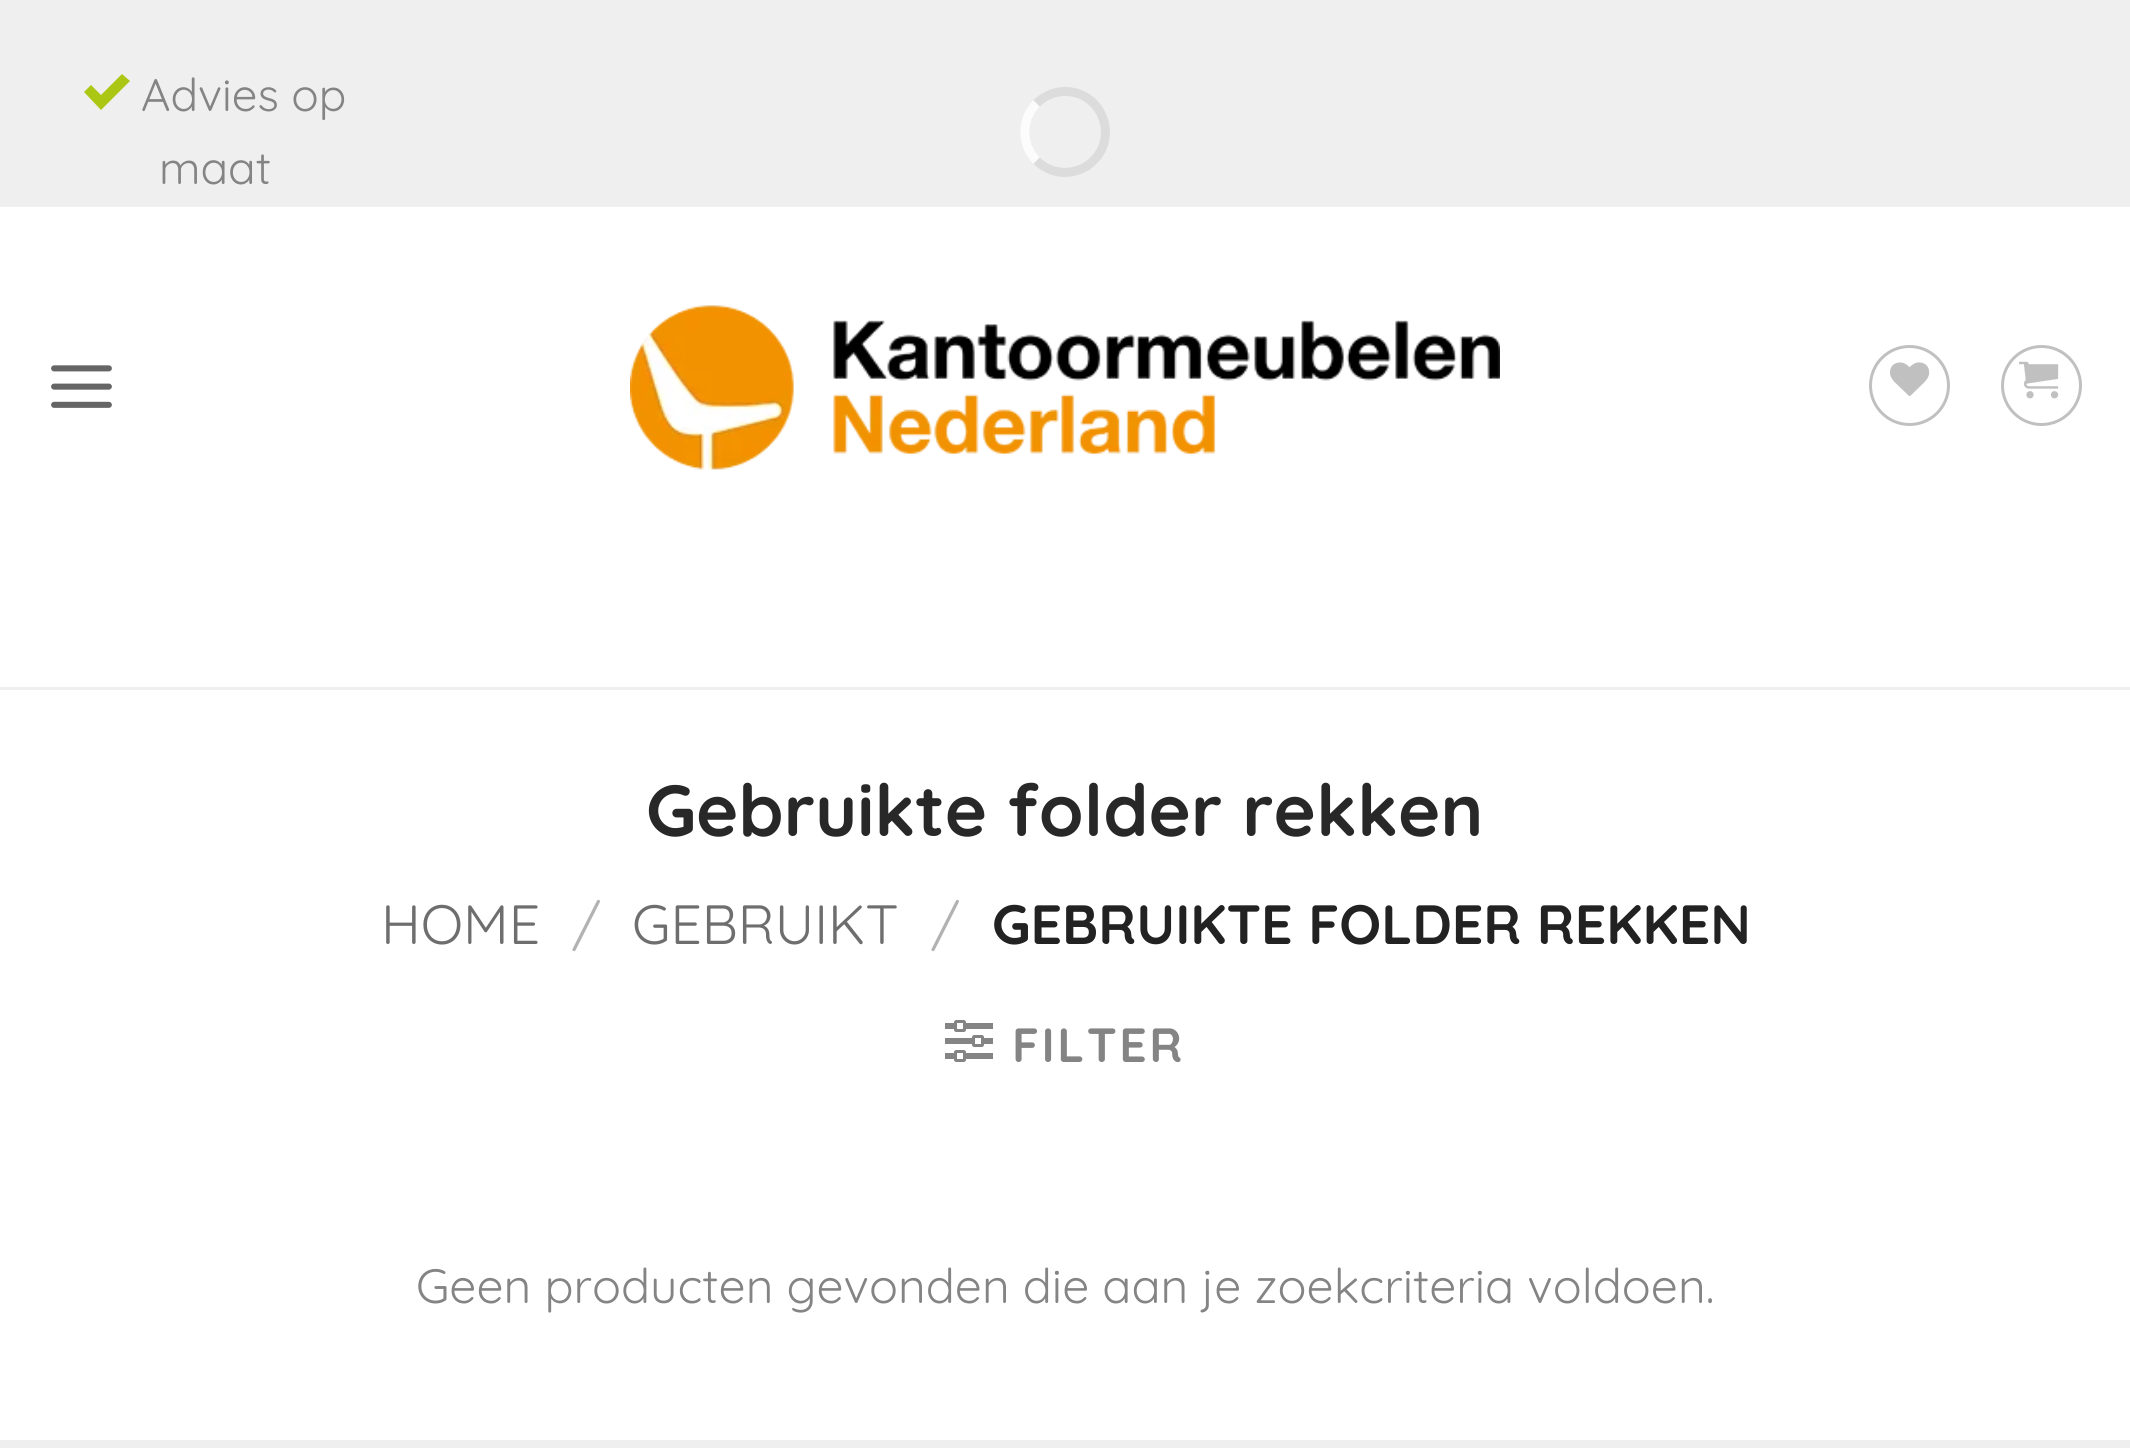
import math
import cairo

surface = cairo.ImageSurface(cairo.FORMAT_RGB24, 2130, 1448)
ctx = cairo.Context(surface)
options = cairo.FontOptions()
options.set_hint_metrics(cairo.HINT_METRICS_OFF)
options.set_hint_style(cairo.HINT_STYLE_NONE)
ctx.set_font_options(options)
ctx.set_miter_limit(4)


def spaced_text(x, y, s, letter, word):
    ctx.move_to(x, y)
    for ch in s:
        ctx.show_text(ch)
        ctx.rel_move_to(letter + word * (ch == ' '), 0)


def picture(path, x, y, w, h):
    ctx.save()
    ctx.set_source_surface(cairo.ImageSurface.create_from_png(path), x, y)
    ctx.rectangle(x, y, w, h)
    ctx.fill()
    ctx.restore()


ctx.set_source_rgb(1, 1, 1)
ctx.paint()
ctx.set_source_rgb(0.937, 0.937, 0.937)
ctx.rectangle(0, 687, 2130, 3)
ctx.fill()
ctx.rectangle(0, 0, 2130, 207)
ctx.fill()
ctx.set_source_rgb(0.675, 0.78, 0.075)
ctx.new_path()
ctx.move_to(122, 74)
ctx.line_to(101, 95)
ctx.line_to(91, 85)
ctx.line_to(84, 92)
ctx.line_to(101, 110)
ctx.line_to(130, 81)
ctx.close_path()
ctx.fill()
ctx.select_font_face("Quicksand")
ctx.set_font_size(45.5)
ctx.set_source_rgb(0.518, 0.518, 0.518)
ctx.move_to(141, 111)
ctx.show_text("Advies op")
ctx.move_to(159, 184)
ctx.show_text("maat")
ctx.new_path()
ctx.move_to(1036.5, 103.5)
ctx.curve_to(1044, 96, 1054.5, 91.5, 1065, 91.5)
ctx.curve_to(1101, 91.5, 1119, 135.5, 1093.5, 160.5)
ctx.curve_to(1088, 166.5, 1080.5, 170, 1073, 171.5)
ctx.curve_to(1060, 174.5, 1046, 170, 1036.5, 160.5)
ctx.set_source_rgb(0.863, 0.863, 0.863)
ctx.set_line_width(9)
ctx.stroke()
ctx.new_path()
ctx.move_to(1036.5, 160.5)
ctx.curve_to(1021, 145, 1021, 119, 1036.5, 103.5)
ctx.set_source_rgb(0.988, 0.988, 0.988)
ctx.stroke()
picture("img1.png", 51, 365, 61, 43)
picture("img2.png", 630, 305, 870, 165)
ctx.arc(1909.5, 385.5, 39, 0, 2 * math.pi)
ctx.set_source_rgb(0.753, 0.753, 0.753)
ctx.set_line_width(3)
ctx.stroke()
picture("img3.png", 1890, 362, 40, 34)
ctx.arc(2041.5, 385.5, 39, 0, 2 * math.pi)
ctx.stroke()
picture("img4.png", 2019, 361, 40, 38)
ctx.select_font_face("Quicksand", cairo.FONT_SLANT_NORMAL, cairo.FONT_WEIGHT_BOLD)
ctx.set_font_size(72)
ctx.set_source_rgb(0.157, 0.157, 0.157)
ctx.move_to(646, 836)
ctx.show_text("Gebruikte folder rekken")
ctx.select_font_face("Quicksand")
ctx.set_font_size(55.25)
ctx.set_source_rgb(0.431, 0.431, 0.431)
ctx.move_to(381, 944)
ctx.show_text("HOME")
ctx.set_source_rgb(0.698, 0.698, 0.698)
ctx.move_to(572, 944)
ctx.show_text("/")
ctx.set_source_rgb(0.431, 0.431, 0.431)
ctx.move_to(632, 944)
ctx.show_text("GEBRUIKT")
ctx.set_source_rgb(0.698, 0.698, 0.698)
ctx.move_to(931, 944)
ctx.show_text("/")
ctx.select_font_face("Quicksand", cairo.FONT_SLANT_NORMAL, cairo.FONT_WEIGHT_BOLD)
ctx.set_source_rgb(0.133, 0.133, 0.133)
ctx.move_to(992, 944)
ctx.show_text("GEBRUIKTE FOLDER REKKEN")
picture("img5.png", 945, 1020, 48, 42)
ctx.set_font_size(48)
ctx.set_source_rgb(0.518, 0.518, 0.518)
spaced_text(1012, 1062, "FILTER", 2.5, 0)
ctx.select_font_face("Quicksand")
ctx.move_to(416, 1303)
ctx.show_text("Geen producten gevonden die aan je zoekcriteria voldoen.")
ctx.set_source_rgb(0.937, 0.937, 0.937)
ctx.rectangle(0, 1440, 2130, 8)
ctx.fill()
surface.write_to_png("page.png")
